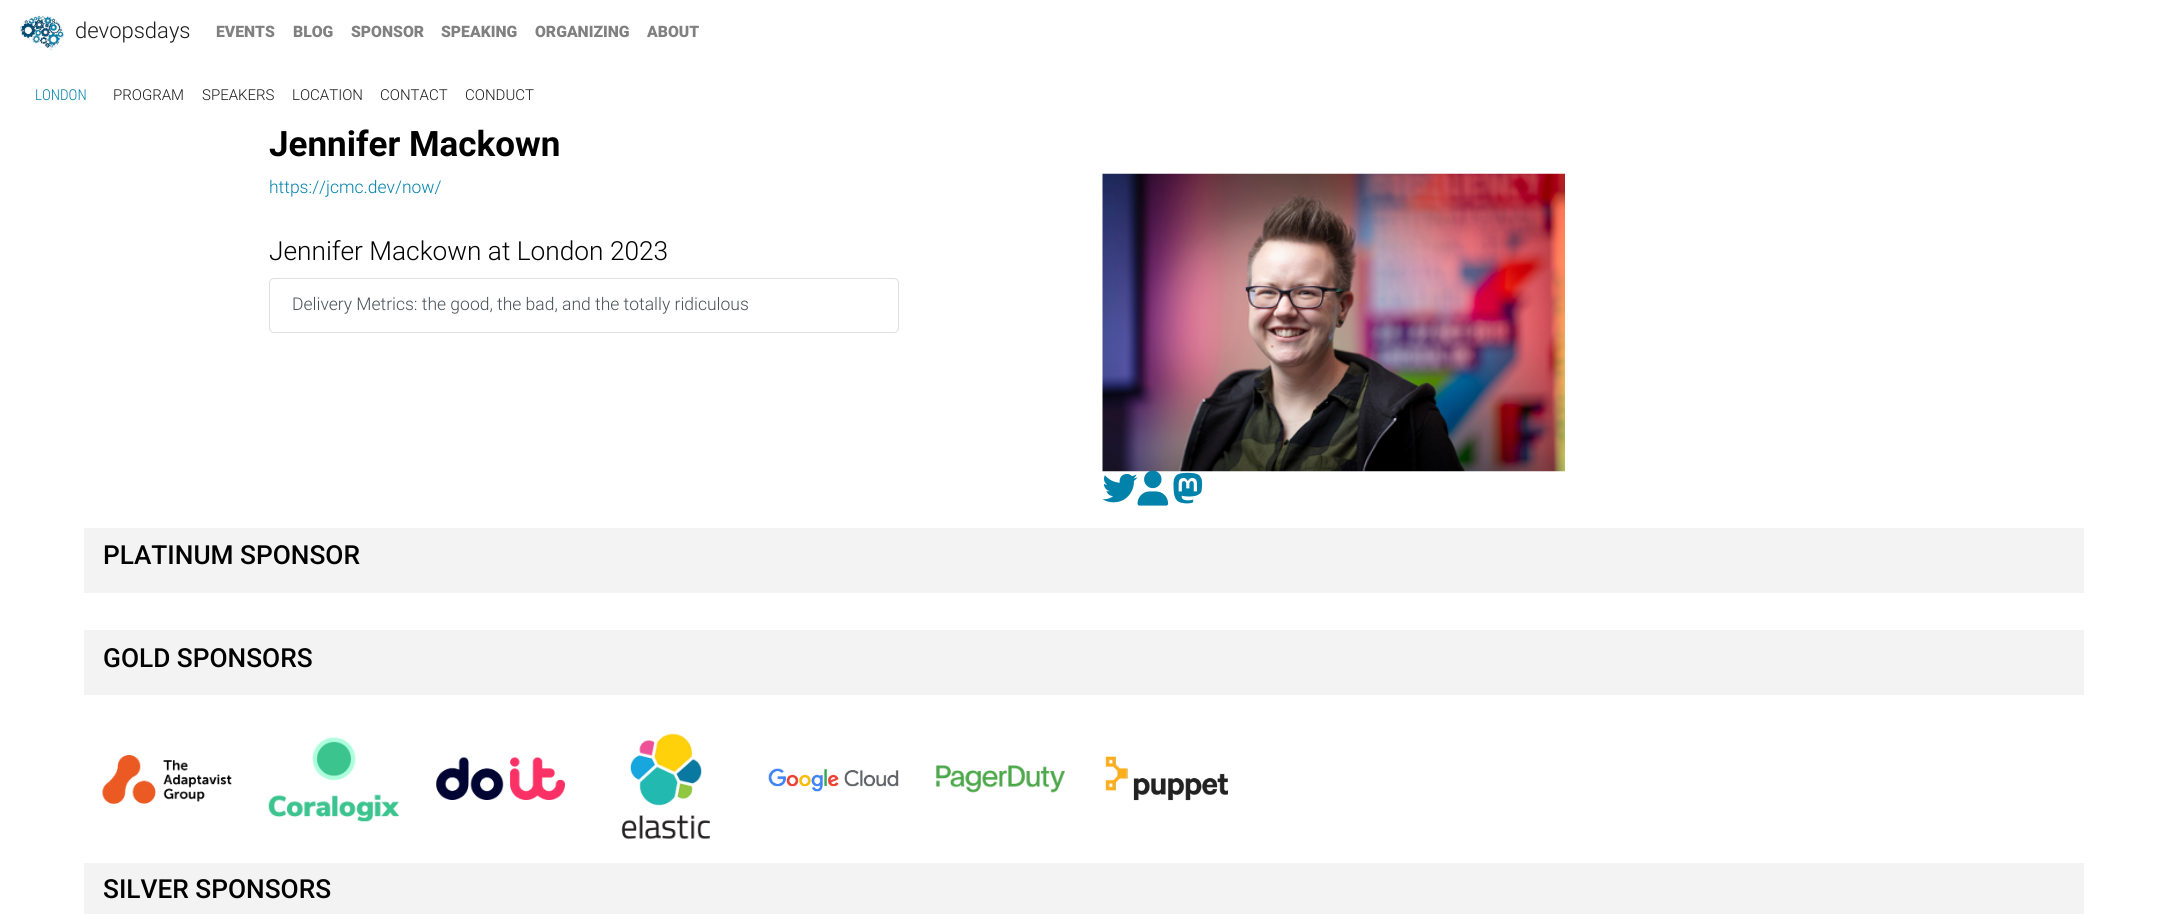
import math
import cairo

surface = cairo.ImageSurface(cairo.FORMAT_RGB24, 2167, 914)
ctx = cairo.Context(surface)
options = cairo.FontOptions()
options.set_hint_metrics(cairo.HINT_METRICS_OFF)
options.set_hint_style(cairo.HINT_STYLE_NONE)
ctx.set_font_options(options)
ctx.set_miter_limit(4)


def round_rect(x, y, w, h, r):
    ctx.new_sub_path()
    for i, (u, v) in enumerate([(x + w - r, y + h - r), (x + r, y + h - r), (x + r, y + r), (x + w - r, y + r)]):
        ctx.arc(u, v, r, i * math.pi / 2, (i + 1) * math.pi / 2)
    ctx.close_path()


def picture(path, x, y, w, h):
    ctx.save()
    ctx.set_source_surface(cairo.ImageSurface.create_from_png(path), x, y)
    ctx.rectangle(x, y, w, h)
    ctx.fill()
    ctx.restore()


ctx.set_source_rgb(1, 1, 1)
ctx.paint()
picture("img1.png", 20, 15, 50, 36)
ctx.select_font_face("Roboto Light")
ctx.set_font_size(22)
ctx.set_source_rgb(0.102, 0.102, 0.102)
ctx.move_to(75, 38)
ctx.show_text("devopsdays")
ctx.select_font_face("Roboto Black")
ctx.set_font_size(15.75)
ctx.set_source_rgb(0.502, 0.502, 0.502)
ctx.move_to(216, 37)
ctx.show_text("EVENTS")
ctx.move_to(293, 37)
ctx.show_text("BLOG")
ctx.move_to(351, 37)
ctx.show_text("SPONSOR")
ctx.move_to(441, 37)
ctx.show_text("SPEAKING")
ctx.move_to(535, 37)
ctx.show_text("ORGANIZING")
ctx.move_to(647, 37)
ctx.show_text("ABOUT")
ctx.select_font_face("Roboto Condensed Light")
ctx.set_font_size(15)
ctx.set_source_rgb(0, 0.51, 0.671)
ctx.move_to(35, 100)
ctx.show_text("LONDON")
ctx.select_font_face("Roboto Light")
ctx.set_source_rgb(0.102, 0.102, 0.102)
ctx.move_to(113, 100)
ctx.show_text("PROGRAM")
ctx.move_to(202, 100)
ctx.show_text("SPEAKERS")
ctx.move_to(292, 100)
ctx.show_text("LOCATION")
ctx.move_to(380, 100)
ctx.show_text("CONTACT")
ctx.move_to(465, 100)
ctx.show_text("CONDUCT")
ctx.select_font_face("Roboto", cairo.FONT_SLANT_NORMAL, cairo.FONT_WEIGHT_BOLD)
ctx.set_font_size(35)
ctx.set_source_rgb(0, 0, 0)
ctx.move_to(269, 156)
ctx.show_text("Jennifer Mackown")
ctx.select_font_face("Roboto Light")
ctx.set_font_size(17.5)
ctx.set_source_rgb(0, 0.51, 0.671)
ctx.move_to(269, 193)
ctx.show_text("https://jcmc.dev/now/")
ctx.set_font_size(26.25)
ctx.set_source_rgb(0, 0, 0)
ctx.move_to(269, 260)
ctx.show_text("Jennifer Mackown at London 2023")
round_rect(269.5, 278.5, 629, 54, 4.5)
ctx.set_source_rgb(0.875, 0.875, 0.875)
ctx.set_line_width(1)
ctx.stroke()
ctx.set_font_size(17.5)
ctx.set_source_rgb(0.286, 0.314, 0.341)
ctx.move_to(292, 310)
ctx.show_text("Delivery Metrics: the good, the bad, and the totally ridiculous")
picture("img2.png", 1102, 173, 463, 299)
picture("img3.png", 1102, 473, 36, 30)
picture("img4.png", 1137, 470, 32, 36)
picture("img5.png", 1173, 472, 30, 32)
ctx.set_source_rgb(0.953, 0.953, 0.953)
ctx.rectangle(84, 528, 2000, 65)
ctx.fill()
ctx.select_font_face("Roboto Medium")
ctx.set_font_size(26.25)
ctx.set_source_rgb(0, 0, 0)
ctx.move_to(103, 564)
ctx.show_text("PLATINUM SPONSOR")
ctx.set_source_rgb(0.953, 0.953, 0.953)
ctx.rectangle(84, 630, 2000, 65)
ctx.fill()
ctx.set_source_rgb(0, 0, 0)
ctx.move_to(103, 667)
ctx.show_text("GOLD SPONSORS")
picture("img6.png", 102, 755, 130, 49)
picture("img7.png", 268, 737, 131, 85)
picture("img8.png", 436, 757, 129, 43)
picture("img9.png", 621, 733, 89, 107)
picture("img10.png", 768, 768, 131, 24)
picture("img11.png", 936, 765, 129, 28)
picture("img12.png", 1104, 756, 124, 45)
ctx.set_source_rgb(0.953, 0.953, 0.953)
ctx.rectangle(84, 863, 2000, 51)
ctx.fill()
ctx.set_source_rgb(0, 0, 0)
ctx.move_to(103, 898)
ctx.show_text("SILVER SPONSORS")
surface.write_to_png("page.png")
